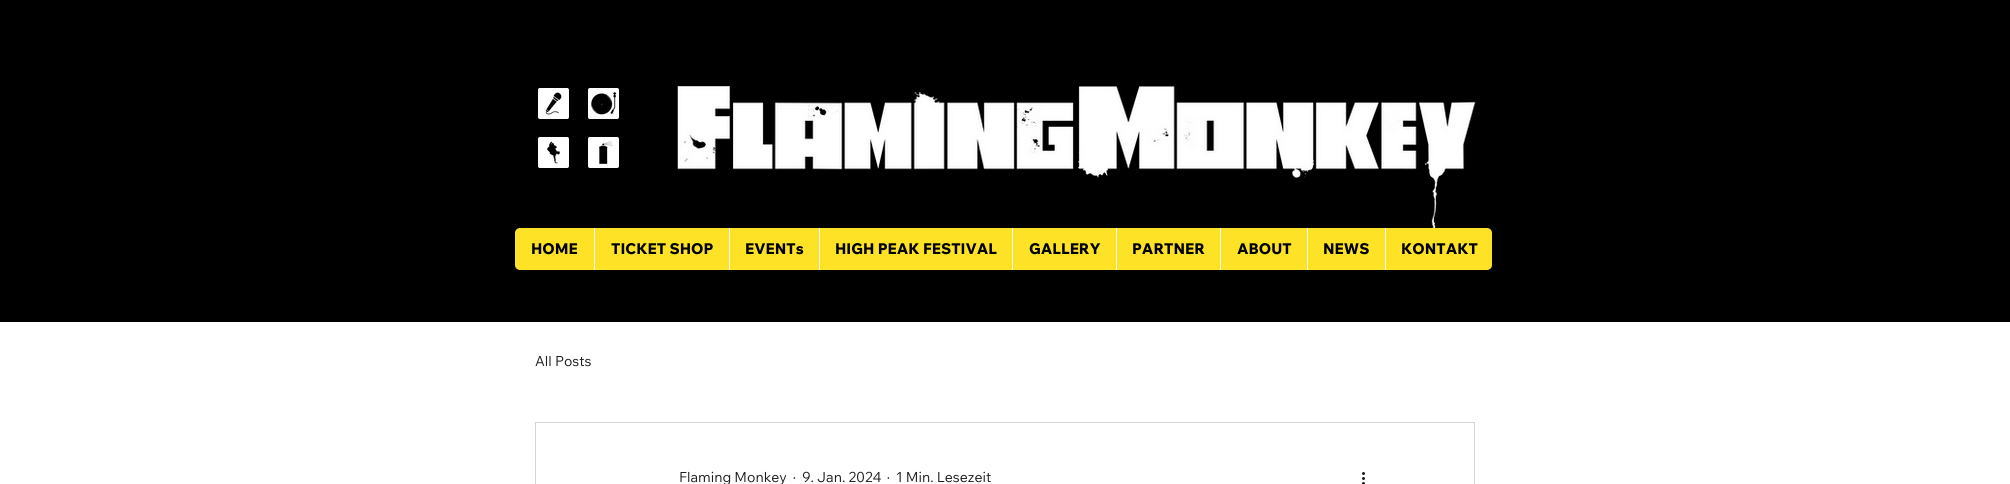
import math
import cairo

surface = cairo.ImageSurface(cairo.FORMAT_RGB24, 2010, 484)
ctx = cairo.Context(surface)
options = cairo.FontOptions()
options.set_hint_metrics(cairo.HINT_METRICS_OFF)
options.set_hint_style(cairo.HINT_STYLE_NONE)
ctx.set_font_options(options)
ctx.set_miter_limit(4)


def round_rect(x, y, w, h, r):
    ctx.new_sub_path()
    for i, (u, v) in enumerate([(x + w - r, y + h - r), (x + r, y + h - r), (x + r, y + r), (x + w - r, y + r)]):
        ctx.arc(u, v, r, i * math.pi / 2, (i + 1) * math.pi / 2)
    ctx.close_path()


def picture(path, x, y, w, h):
    ctx.save()
    ctx.set_source_surface(cairo.ImageSurface.create_from_png(path), x, y)
    ctx.rectangle(x, y, w, h)
    ctx.fill()
    ctx.restore()


ctx.set_source_rgb(1, 1, 1)
ctx.paint()
ctx.set_source_rgb(0, 0, 0)
ctx.rectangle(0, 0, 2010, 322)
ctx.fill()
picture("img1.png", 538, 88, 31, 31)
picture("img2.png", 588, 88, 31, 31)
picture("img3.png", 677, 86, 799, 142)
picture("img4.png", 538, 137, 31, 31)
picture("img5.png", 588, 137, 31, 31)
ctx.set_source_rgb(0.992, 0.886, 0.145)
round_rect(515, 228, 977, 42, 5)
ctx.fill()
ctx.select_font_face("Wix Madefor Text ExtraBold")
ctx.set_font_size(15)
ctx.set_source_rgb(0, 0, 0)
ctx.move_to(531, 254)
ctx.show_text("HOME")
ctx.set_source_rgb(1, 1, 1)
ctx.rectangle(594, 228, 1, 42)
ctx.fill()
ctx.set_source_rgb(0, 0, 0)
ctx.move_to(611, 254)
ctx.show_text("TICKET SHOP")
ctx.set_source_rgb(1, 1, 1)
ctx.rectangle(729, 228, 1, 42)
ctx.fill()
ctx.set_source_rgb(0, 0, 0)
ctx.move_to(745, 254)
ctx.show_text("EVENTs")
ctx.set_source_rgb(1, 1, 1)
ctx.rectangle(819, 228, 1, 42)
ctx.fill()
ctx.set_source_rgb(0, 0, 0)
ctx.move_to(835, 254)
ctx.show_text("HIGH PEAK FESTIVAL")
ctx.set_source_rgb(1, 1, 1)
ctx.rectangle(1012, 228, 1, 42)
ctx.fill()
ctx.set_source_rgb(0, 0, 0)
ctx.move_to(1029, 254)
ctx.show_text("GALLERY")
ctx.set_source_rgb(1, 1, 1)
ctx.rectangle(1116, 228, 1, 42)
ctx.fill()
ctx.set_source_rgb(0, 0, 0)
ctx.move_to(1132, 254)
ctx.show_text("PARTNER")
ctx.set_source_rgb(1, 1, 1)
ctx.rectangle(1220, 228, 1, 42)
ctx.fill()
ctx.set_source_rgb(0, 0, 0)
ctx.move_to(1237, 254)
ctx.show_text("ABOUT")
ctx.set_source_rgb(1, 1, 1)
ctx.rectangle(1307, 228, 1, 42)
ctx.fill()
ctx.set_source_rgb(0, 0, 0)
ctx.move_to(1323, 254)
ctx.show_text("NEWS")
ctx.set_source_rgb(1, 1, 1)
ctx.rectangle(1385, 228, 1, 42)
ctx.fill()
ctx.set_source_rgb(0, 0, 0)
ctx.move_to(1401, 254)
ctx.show_text("KONTAKT")
ctx.select_font_face("Wix Madefor Text")
ctx.set_font_size(14)
ctx.set_source_rgb(0.11, 0.11, 0.11)
ctx.move_to(535, 366)
ctx.show_text("All Posts")
ctx.rectangle(535.5, 422.5, 939, 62)
ctx.set_source_rgb(0.831, 0.831, 0.831)
ctx.set_line_width(1)
ctx.stroke()
ctx.set_source_rgb(0.11, 0.11, 0.11)
ctx.move_to(679, 482)
ctx.show_text("Flaming Monkey")
ctx.move_to(793, 482)
ctx.show_text("·")
ctx.move_to(802, 482)
ctx.show_text("9. Jan. 2024")
ctx.move_to(887, 482)
ctx.show_text("·")
ctx.move_to(896, 482)
ctx.show_text("1 Min. Lesezeit")
picture("img6.png", 1362, 472, 3, 12)
surface.write_to_png("page.png")
